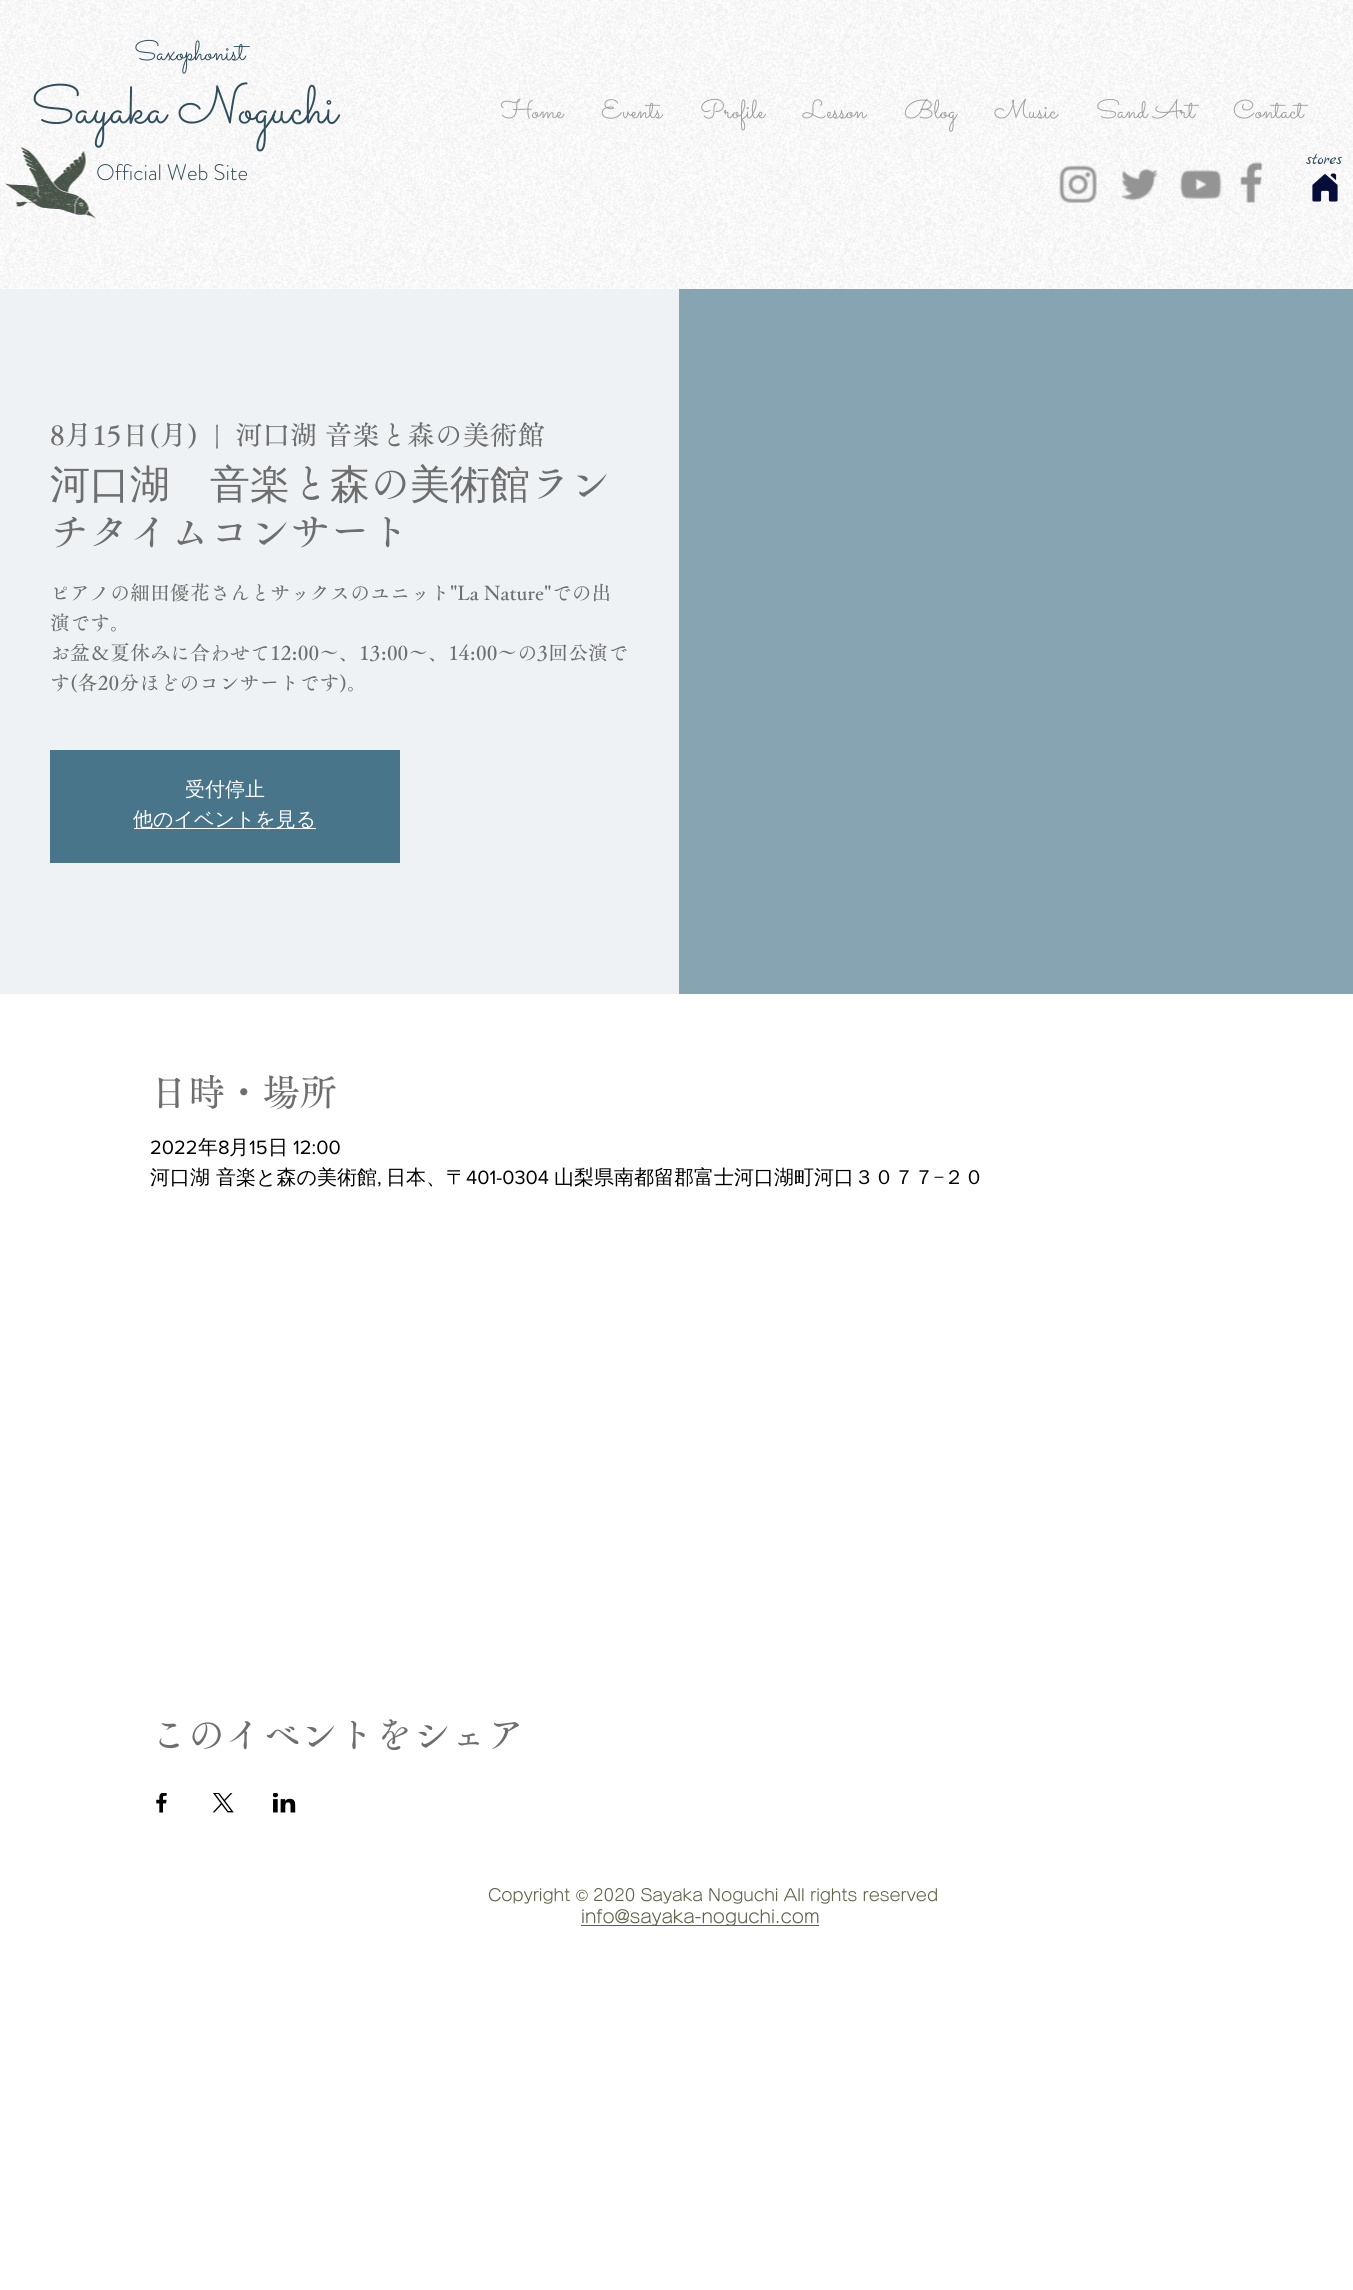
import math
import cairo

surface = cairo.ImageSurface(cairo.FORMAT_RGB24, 1353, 2290)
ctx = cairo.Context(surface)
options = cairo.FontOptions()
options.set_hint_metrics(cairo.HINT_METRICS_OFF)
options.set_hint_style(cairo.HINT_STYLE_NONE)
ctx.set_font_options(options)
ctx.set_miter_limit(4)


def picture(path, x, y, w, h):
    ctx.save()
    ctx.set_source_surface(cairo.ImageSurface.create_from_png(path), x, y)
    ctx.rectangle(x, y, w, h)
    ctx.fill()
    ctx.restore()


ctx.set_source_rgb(1, 1, 1)
ctx.paint()
picture("img1.png", 0, 0, 1353, 289)
ctx.select_font_face("Sacramento")
ctx.set_font_size(27.5)
ctx.set_source_rgb(0.192, 0.306, 0.365)
ctx.move_to(134, 60)
ctx.show_text("Saxophonist")
picture("img2.png", 3, 146, 93, 74)
ctx.select_font_face("Marck Script")
ctx.set_font_size(17.5)
ctx.move_to(1306, 164)
ctx.show_text("stores")
ctx.select_font_face("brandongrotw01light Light")
ctx.set_font_size(22.5)
ctx.move_to(96, 180)
ctx.show_text("Official Web Site")
picture("img3.png", 1059, 165, 38, 38)
picture("img4.png", 1121, 168, 37, 33)
picture("img5.png", 1180, 169, 42, 31)
picture("img6.png", 1240, 162, 23, 41)
picture("img7.png", 1312, 173, 26, 29)
ctx.select_font_face("Sacramento")
ctx.set_font_size(53.75)
ctx.move_to(31, 123)
ctx.show_text("Sayaka Noguchi")
ctx.set_font_size(26)
ctx.set_source_rgb(0.62, 0.62, 0.62)
ctx.move_to(501, 118)
ctx.show_text("Home")
ctx.move_to(601, 118)
ctx.show_text("Events")
ctx.move_to(700, 118)
ctx.show_text("Profile")
ctx.move_to(803, 118)
ctx.show_text("Lesson")
ctx.move_to(904, 118)
ctx.show_text("Blog")
ctx.move_to(994, 118)
ctx.show_text("Music")
ctx.move_to(1096, 118)
ctx.show_text("Sand Art")
ctx.move_to(1233, 118)
ctx.show_text("Contact")
ctx.set_source_rgb(0.933, 0.949, 0.957)
ctx.rectangle(0, 289, 679, 705)
ctx.fill()
ctx.select_font_face("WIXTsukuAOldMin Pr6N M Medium")
ctx.set_font_size(27.5)
ctx.set_source_rgb(0.431, 0.431, 0.431)
ctx.move_to(50, 445)
ctx.show_text("8月15日(月)")
ctx.move_to(213, 445)
ctx.show_text("|")
ctx.move_to(235, 445)
ctx.show_text("河口湖 音楽と森の美術館")
ctx.select_font_face("WenQuanYi Zen Hei Medium")
ctx.set_font_size(40)
ctx.move_to(50, 498)
ctx.show_text("河口湖　音楽")
ctx.select_font_face("WIXTsukuAOldMin Pr6N M Medium")
ctx.move_to(290, 498)
ctx.show_text("と")
ctx.select_font_face("WenQuanYi Zen Hei Medium")
ctx.move_to(330, 498)
ctx.show_text("森")
ctx.select_font_face("WIXTsukuAOldMin Pr6N M Medium")
ctx.move_to(370, 498)
ctx.show_text("の")
ctx.select_font_face("WenQuanYi Zen Hei Medium")
ctx.move_to(410, 498)
ctx.show_text("美術館")
ctx.select_font_face("WIXTsukuAOldMin Pr6N M Medium")
ctx.move_to(530, 498)
ctx.show_text("ラン")
ctx.move_to(50, 546)
ctx.show_text("チタイムコンサート")
ctx.set_font_size(20)
ctx.move_to(50, 600)
ctx.show_text("ピアノの細田優花さんとサックスのユニット\"La Nature\"での出")
ctx.move_to(50, 630)
ctx.show_text("演です。")
ctx.move_to(50, 660)
ctx.show_text("お盆＆夏休みに合わせて12:00〜、13:00〜、14:00〜の3回公演で")
ctx.move_to(50, 690)
ctx.show_text("す(各20分ほどのコンサートです)。")
ctx.set_source_rgb(0.286, 0.459, 0.545)
ctx.rectangle(50, 750, 350, 113)
ctx.fill()
ctx.select_font_face("WenQuanYi Zen Hei Medium")
ctx.set_source_rgb(1, 1, 1)
ctx.move_to(185, 796)
ctx.show_text("受付停止")
ctx.rectangle(134, 828, 182, 1)
ctx.fill()
ctx.move_to(133, 826)
ctx.show_text("他のイベントを見る")
ctx.set_source_rgb(0.529, 0.643, 0.698)
ctx.rectangle(679, 289, 674, 705)
ctx.fill()
ctx.select_font_face("WIXTsukuAOldMin Pr6N M Medium")
ctx.set_font_size(37.5)
ctx.set_source_rgb(0.431, 0.431, 0.431)
ctx.move_to(150, 1106)
ctx.show_text("日時・場所")
ctx.select_font_face("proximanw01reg")
ctx.set_font_size(20)
ctx.set_source_rgb(0, 0, 0)
ctx.move_to(150, 1154)
ctx.show_text("2022")
ctx.select_font_face("WenQuanYi Zen Hei Medium")
ctx.move_to(198, 1154)
ctx.show_text("年")
ctx.select_font_face("proximanw01reg")
ctx.move_to(218, 1154)
ctx.show_text("8")
ctx.select_font_face("WenQuanYi Zen Hei Medium")
ctx.move_to(229, 1154)
ctx.show_text("月")
ctx.select_font_face("proximanw01reg")
ctx.move_to(249, 1154)
ctx.show_text("15")
ctx.select_font_face("WenQuanYi Zen Hei Medium")
ctx.move_to(268, 1154)
ctx.show_text("日")
ctx.select_font_face("proximanw01reg")
ctx.move_to(293, 1154)
ctx.show_text("12:00")
ctx.select_font_face("WenQuanYi Zen Hei Medium")
ctx.move_to(150, 1184)
ctx.show_text("河口湖 音楽と森の美術館")
ctx.move_to(386, 1184)
ctx.show_text("日本、〒")
ctx.select_font_face("proximanw01reg")
ctx.move_to(466, 1184)
ctx.show_text("401-0304")
ctx.select_font_face("WenQuanYi Zen Hei Medium")
ctx.move_to(554, 1184)
ctx.show_text("山梨県南都留郡富士河口湖町河口３０７７")
ctx.select_font_face("proximanw01reg")
ctx.move_to(934, 1184)
ctx.show_text("−")
ctx.select_font_face("WenQuanYi Zen Hei Medium")
ctx.move_to(944, 1184)
ctx.show_text("２０")
ctx.select_font_face("proximanw01reg")
ctx.move_to(377, 1184)
ctx.show_text(",")
ctx.select_font_face("WIXTsukuAOldMin Pr6N M Medium")
ctx.set_font_size(37.5)
ctx.set_source_rgb(0.431, 0.431, 0.431)
ctx.move_to(150, 1748)
ctx.show_text("このイベントをシェア")
picture("img8.png", 156, 1793, 11, 20)
picture("img9.png", 212, 1793, 22, 20)
picture("img10.png", 273, 1793, 23, 20)
ctx.select_font_face("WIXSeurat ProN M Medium")
ctx.set_font_size(16.25)
ctx.set_source_rgb(0.373, 0.392, 0.282)
ctx.move_to(488, 1901)
ctx.show_text("Copyright")
ctx.select_font_face("Liberation Sans")
ctx.move_to(576, 1901)
ctx.show_text("©")
ctx.select_font_face("WIXSeurat ProN M Medium")
ctx.move_to(593, 1901)
ctx.show_text("2020 Sayaka Noguchi All rights reserved")
ctx.rectangle(581, 1925, 238, 1)
ctx.fill()
ctx.set_font_size(17.5)
ctx.move_to(581, 1923)
ctx.show_text("info@sayaka-noguchi.com")
surface.write_to_png("page.png")
